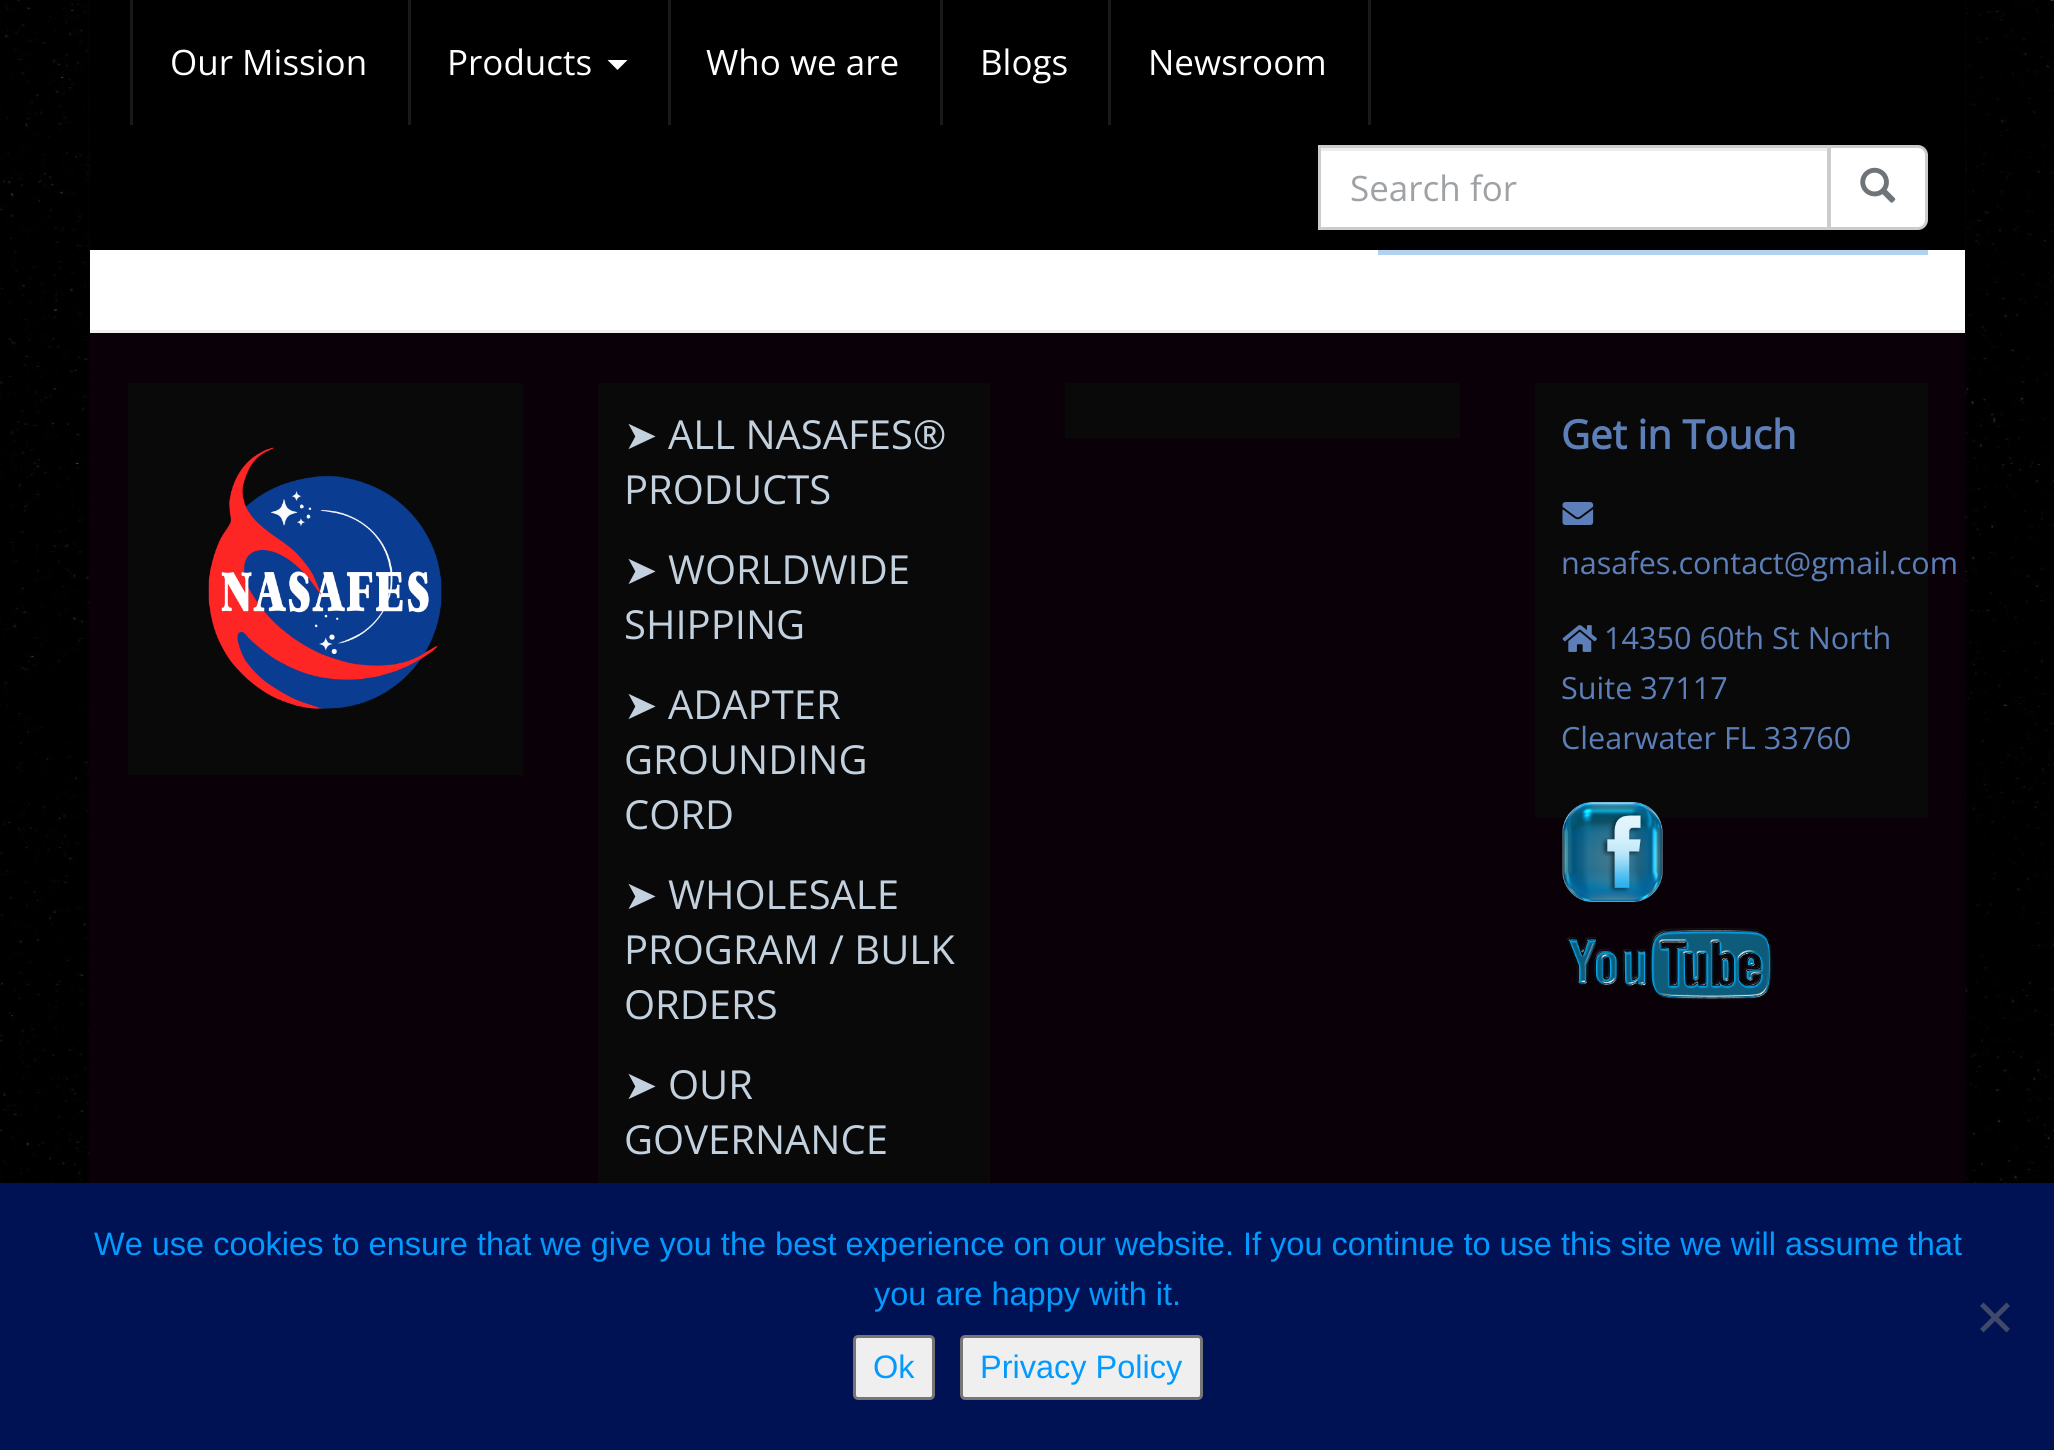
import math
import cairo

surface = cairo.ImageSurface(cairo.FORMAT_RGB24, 2054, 1450)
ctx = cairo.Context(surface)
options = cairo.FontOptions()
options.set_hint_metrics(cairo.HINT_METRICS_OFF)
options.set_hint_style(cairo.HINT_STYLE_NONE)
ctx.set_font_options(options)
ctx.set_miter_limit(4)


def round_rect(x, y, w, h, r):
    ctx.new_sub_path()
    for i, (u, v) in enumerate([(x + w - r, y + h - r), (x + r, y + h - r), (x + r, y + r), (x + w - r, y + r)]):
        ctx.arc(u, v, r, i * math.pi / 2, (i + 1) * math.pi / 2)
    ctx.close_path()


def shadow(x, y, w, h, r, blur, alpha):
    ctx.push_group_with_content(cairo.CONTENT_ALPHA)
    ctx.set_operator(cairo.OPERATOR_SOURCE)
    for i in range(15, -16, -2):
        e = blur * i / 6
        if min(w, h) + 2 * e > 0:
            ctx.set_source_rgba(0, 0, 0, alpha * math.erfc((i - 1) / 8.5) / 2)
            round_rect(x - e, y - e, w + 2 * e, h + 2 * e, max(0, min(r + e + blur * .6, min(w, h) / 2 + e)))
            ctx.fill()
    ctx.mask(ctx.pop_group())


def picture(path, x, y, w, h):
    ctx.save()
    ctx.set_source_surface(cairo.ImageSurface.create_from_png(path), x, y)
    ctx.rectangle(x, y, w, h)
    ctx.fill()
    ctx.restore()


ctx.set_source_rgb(1, 1, 1)
ctx.paint()
picture("img1.png", 0, 0, 2054, 1183)
ctx.set_source_rgb(0.039, 0.039, 0.039)
shadow(90, -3, 1875, 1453, 0, 1, 1)
ctx.set_source_rgb(1, 1, 1)
ctx.rectangle(90, 250, 1875, 80)
ctx.fill()
ctx.set_source_rgb(0, 0, 0)
ctx.rectangle(90, 0, 1875, 250)
ctx.fill()
ctx.set_source_rgb(0.098, 0.098, 0.098)
ctx.rectangle(1368, 0, 3, 125)
ctx.fill()
ctx.rectangle(130, 0, 3, 125)
ctx.fill()
ctx.select_font_face("Open Sans")
ctx.set_font_size(35)
ctx.set_source_rgb(1, 1, 1)
ctx.move_to(170, 75)
ctx.show_text("Our Mission")
ctx.set_source_rgb(0.098, 0.098, 0.098)
ctx.rectangle(408, 0, 3, 125)
ctx.fill()
ctx.set_source_rgb(1, 1, 1)
ctx.move_to(447, 75)
ctx.show_text("Products")
ctx.new_path()
ctx.move_to(607.5, 60)
ctx.line_to(627.5, 60)
ctx.line_to(617.5, 70)
ctx.close_path()
ctx.fill()
ctx.set_source_rgb(0.098, 0.098, 0.098)
ctx.rectangle(668, 0, 3, 125)
ctx.fill()
ctx.set_source_rgb(1, 1, 1)
ctx.move_to(706, 75)
ctx.show_text("Who we are")
ctx.set_source_rgb(0.098, 0.098, 0.098)
ctx.rectangle(940, 0, 3, 125)
ctx.fill()
ctx.set_source_rgb(1, 1, 1)
ctx.move_to(980, 75)
ctx.show_text("Blogs")
ctx.set_source_rgb(0.098, 0.098, 0.098)
ctx.rectangle(1108, 0, 3, 125)
ctx.fill()
ctx.set_source_rgb(1, 1, 1)
ctx.move_to(1148, 75)
ctx.show_text("Newsroom")
ctx.rectangle(1321, 151, 506, 76)
ctx.fill()
ctx.set_source_rgb(0.925, 0.925, 0.925)
ctx.rectangle(1320, 148, 508, 3)
ctx.fill()
ctx.rectangle(1319.5, 146.5, 509, 82)
ctx.set_source_rgb(0.8, 0.8, 0.8)
ctx.set_line_width(3)
ctx.stroke()
ctx.set_source_rgb(0.624, 0.635, 0.647)
ctx.move_to(1350, 201)
ctx.show_text("Search for")
ctx.set_source_rgb(1, 1, 1)
ctx.new_path()
ctx.move_to(1829.5, 146.5)
ctx.line_to(1918, 146.5)
ctx.curve_to(1922.5, 146.5, 1926.5, 150.5, 1926.5, 155)
ctx.line_to(1926.5, 220)
ctx.curve_to(1926.5, 224.5, 1922.5, 228.5, 1918, 228.5)
ctx.line_to(1829.5, 228.5)
ctx.close_path()
ctx.fill_preserve()
ctx.set_source_rgb(0.8, 0.8, 0.8)
ctx.stroke()
picture("img2.png", 1860, 167, 36, 36)
ctx.set_source_rgb(0.694, 0.827, 0.941)
ctx.rectangle(1378, 250, 550, 5)
ctx.fill()
ctx.set_source_rgb(0.039, 0, 0.035)
ctx.rectangle(90, 333, 1875, 850)
ctx.fill()
ctx.set_source_rgb(0.941, 0.941, 0.941)
ctx.rectangle(90, 330, 1875, 3)
ctx.fill()
ctx.set_source_rgb(0.039, 0.039, 0.039)
ctx.rectangle(128, 383, 395, 392)
ctx.fill()
picture("img3.png", 208, 447, 234, 262)
ctx.rectangle(1065, 383, 395, 55)
ctx.fill()
ctx.rectangle(598, 383, 392, 800)
ctx.fill()
ctx.select_font_face("DejaVu Sans")
ctx.set_font_size(40)
ctx.set_source_rgb(0.765, 0.82, 0.871)
ctx.move_to(624, 449)
ctx.show_text("➤")
ctx.select_font_face("Open Sans")
ctx.move_to(668, 449)
ctx.show_text("ALL NASAFES®")
ctx.move_to(624, 504)
ctx.show_text("PRODUCTS")
ctx.select_font_face("DejaVu Sans")
ctx.move_to(624, 584)
ctx.show_text("➤")
ctx.select_font_face("Open Sans")
ctx.move_to(668, 584)
ctx.show_text("WORLDWIDE")
ctx.move_to(624, 639)
ctx.show_text("SHIPPING")
ctx.select_font_face("DejaVu Sans")
ctx.move_to(624, 719)
ctx.show_text("➤")
ctx.select_font_face("Open Sans")
ctx.move_to(668, 719)
ctx.show_text("ADAPTER")
ctx.move_to(624, 774)
ctx.show_text("GROUNDING")
ctx.move_to(624, 829)
ctx.show_text("CORD")
ctx.select_font_face("DejaVu Sans")
ctx.move_to(624, 909)
ctx.show_text("➤")
ctx.select_font_face("Open Sans")
ctx.move_to(668, 909)
ctx.show_text("WHOLESALE")
ctx.move_to(624, 964)
ctx.show_text("PROGRAM / BULK")
ctx.move_to(624, 1019)
ctx.show_text("ORDERS")
ctx.select_font_face("DejaVu Sans")
ctx.move_to(624, 1099)
ctx.show_text("➤")
ctx.select_font_face("Open Sans")
ctx.move_to(668, 1099)
ctx.show_text("OUR")
ctx.move_to(624, 1154)
ctx.show_text("GOVERNANCE")
ctx.set_source_rgb(0.039, 0.039, 0.039)
ctx.rectangle(1535, 383, 393, 435)
ctx.fill()
ctx.select_font_face("Open Sans", cairo.FONT_SLANT_NORMAL, cairo.FONT_WEIGHT_BOLD)
ctx.set_source_rgb(0.365, 0.498, 0.725)
ctx.move_to(1561, 449)
ctx.show_text("Get in Touch")
picture("img4.png", 1562, 502, 32, 23)
ctx.select_font_face("Open Sans")
ctx.set_font_size(30.6)
ctx.move_to(1561, 574)
ctx.show_text("nasafes.contact@gmail.com")
picture("img5.png", 1562, 625, 35, 27)
ctx.move_to(1604, 649)
ctx.show_text("14350 60th St North")
ctx.move_to(1561, 699)
ctx.show_text("Suite 37117")
ctx.move_to(1561, 749)
ctx.show_text("Clearwater FL 33760")
picture("img6.png", 1562, 802, 101, 100)
picture("img7.png", 1566, 928, 207, 72)
ctx.set_source_rgb(0, 0.071, 0.329)
ctx.rectangle(0, 1183, 2054, 267)
ctx.fill()
ctx.select_font_face("Liberation Sans")
ctx.set_font_size(32.5)
ctx.set_source_rgb(0.008, 0.604, 1)
ctx.move_to(94, 1255)
ctx.show_text("We use cookies to ensure that we give you the best experience on our website. If you continue to use this site we will assume that")
ctx.move_to(874, 1305)
ctx.show_text("you are happy with it.")
ctx.set_source_rgb(0.251, 0.286, 0.416)
ctx.new_path()
ctx.move_to(2006.5, 1302.5)
ctx.line_to(2010, 1306)
ctx.line_to(1983.5, 1332.5)
ctx.line_to(1980, 1329)
ctx.close_path()
ctx.fill()
ctx.new_path()
ctx.move_to(1980, 1306)
ctx.line_to(1983.5, 1302.5)
ctx.line_to(2010, 1329)
ctx.line_to(2006.5, 1332.5)
ctx.close_path()
ctx.fill()
ctx.set_source_rgb(0.937, 0.937, 0.937)
round_rect(854.5, 1336.5, 79, 62, 3.5)
ctx.fill_preserve()
ctx.set_source_rgb(0.463, 0.463, 0.463)
ctx.stroke()
ctx.set_source_rgb(0.008, 0.604, 1)
ctx.move_to(873, 1378)
ctx.show_text("Ok")
ctx.set_source_rgb(0.937, 0.937, 0.937)
round_rect(961.5, 1336.5, 240, 62, 3.5)
ctx.fill_preserve()
ctx.set_source_rgb(0.463, 0.463, 0.463)
ctx.stroke()
ctx.set_source_rgb(0.008, 0.604, 1)
ctx.move_to(980, 1378)
ctx.show_text("Privacy Policy")
surface.write_to_png("page.png")
